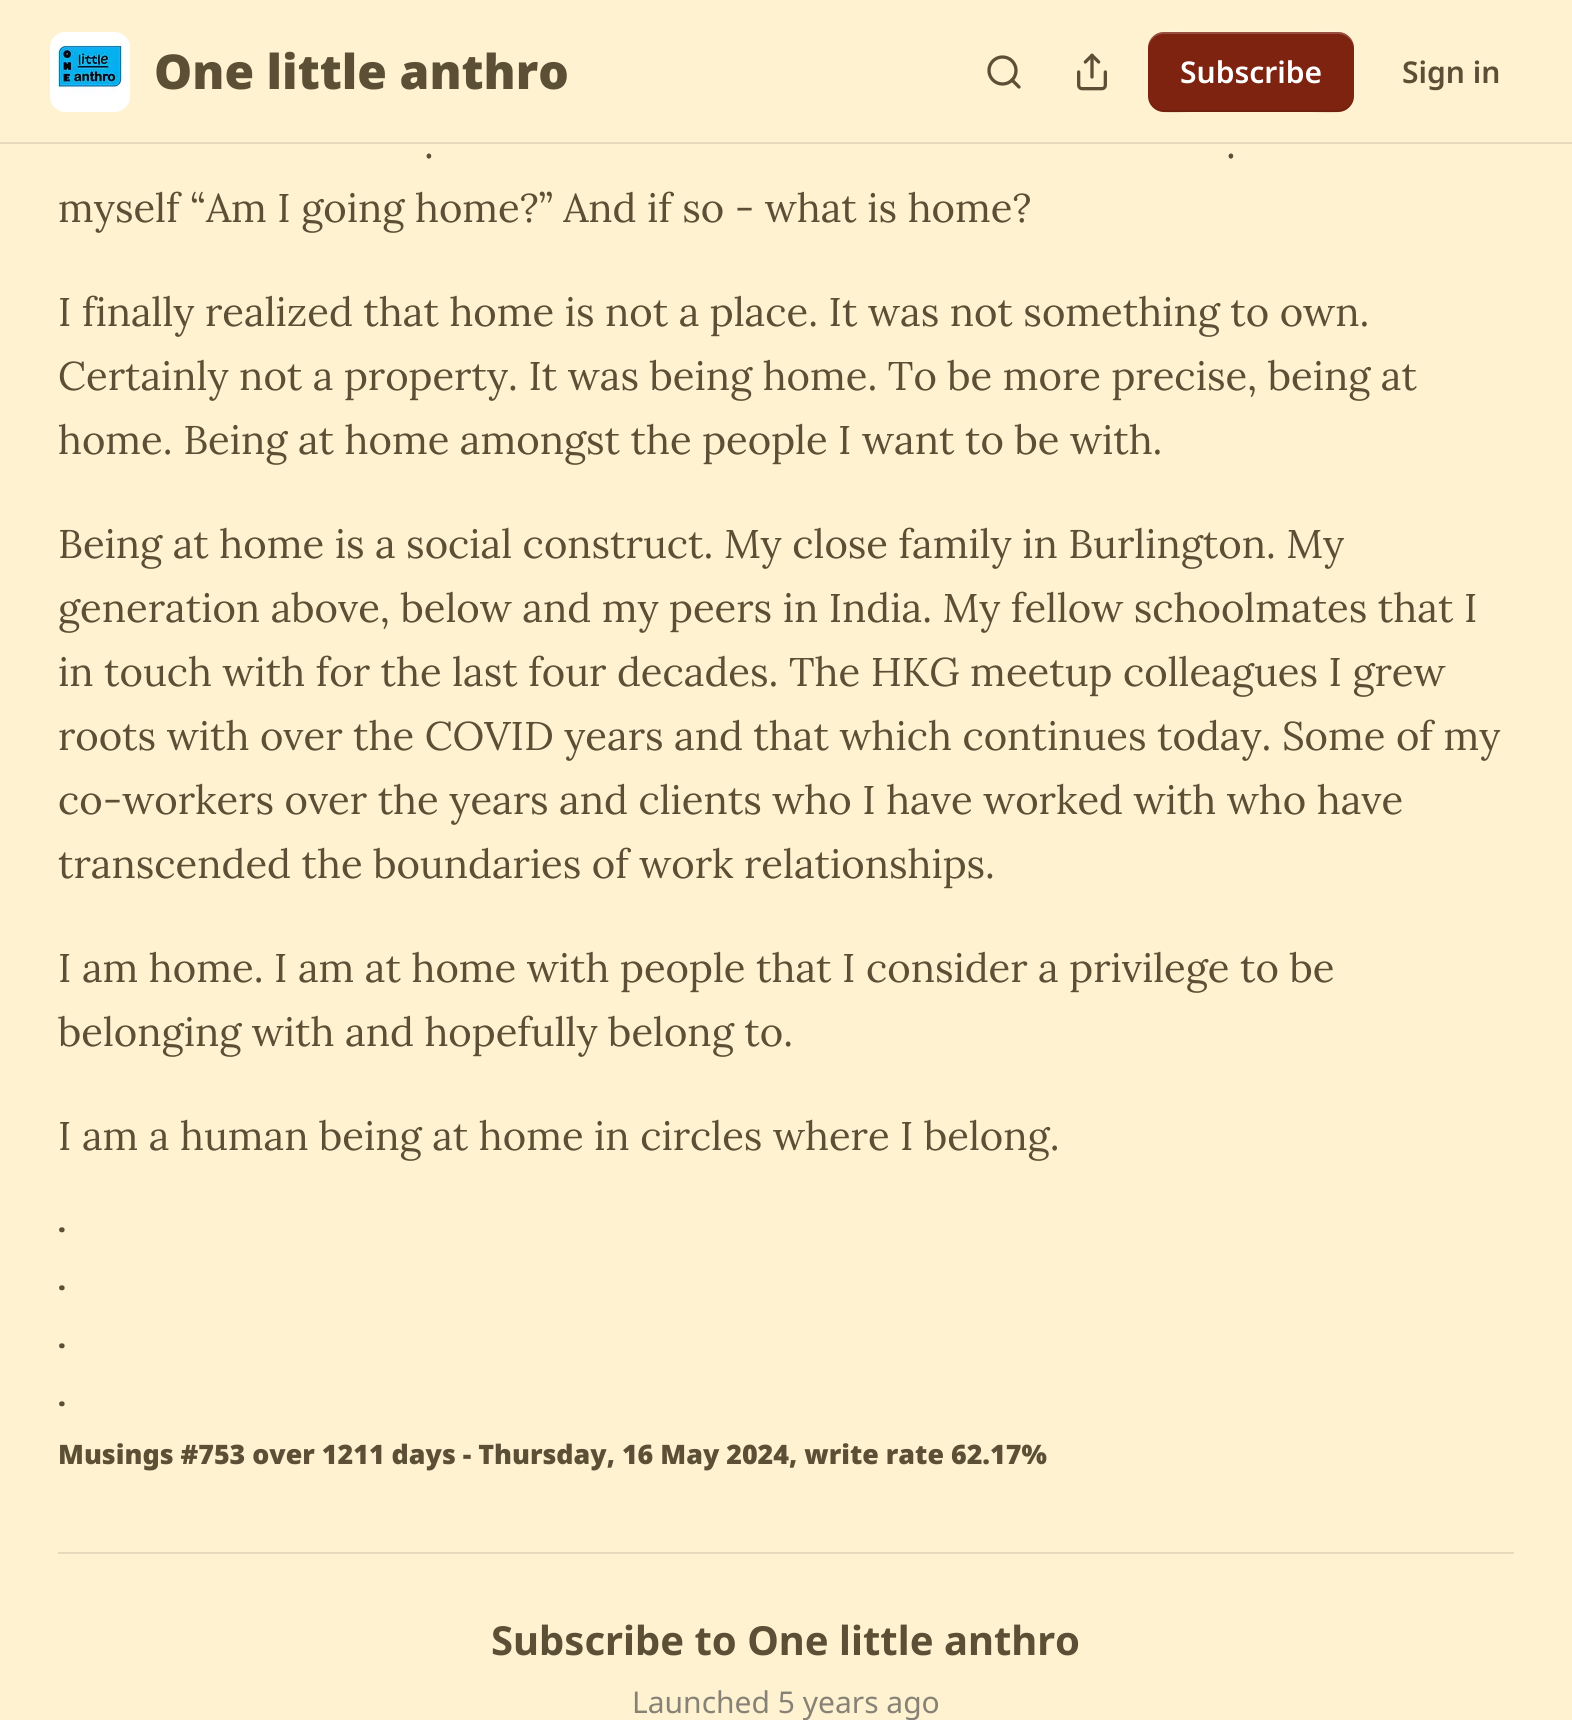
import math
import cairo

surface = cairo.ImageSurface(cairo.FORMAT_RGB24, 1572, 1720)
ctx = cairo.Context(surface)
options = cairo.FontOptions()
options.set_hint_metrics(cairo.HINT_METRICS_OFF)
options.set_hint_style(cairo.HINT_STYLE_NONE)
ctx.set_font_options(options)
ctx.set_miter_limit(4)


def round_rect(x, y, w, h, r):
    ctx.new_sub_path()
    for i, (u, v) in enumerate([(x + w - r, y + h - r), (x + r, y + h - r), (x + r, y + r), (x + w - r, y + r)]):
        ctx.arc(u, v, r, i * math.pi / 2, (i + 1) * math.pi / 2)
    ctx.close_path()


def picture(path, x, y, w, h):
    ctx.save()
    ctx.set_source_surface(cairo.ImageSurface.create_from_png(path), x, y)
    ctx.rectangle(x, y, w, h)
    ctx.fill()
    ctx.restore()


ctx.set_source_rgb(1, 0.949, 0.82)
ctx.paint()
ctx.set_source_rgb(0.902, 0.855, 0.737)
ctx.rectangle(0, 142, 1572, 2)
ctx.fill()
ctx.set_source_rgb(1, 1, 1)
round_rect(50, 32, 80, 80, 16)
ctx.fill()
picture("img1.png", 50, 32, 80, 80)
ctx.select_font_face("Noto Sans Black")
ctx.set_font_size(48)
ctx.set_source_rgb(0.357, 0.314, 0.212)
ctx.move_to(154, 89)
ctx.show_text("One little anthro")
ctx.new_path()
ctx.arc(1002.5, 70.5, 13.5, 0, 2 * math.pi)
ctx.set_line_width(3.3)
ctx.stroke()
ctx.new_path()
ctx.move_to(1019, 87)
ctx.line_to(1012, 80)
ctx.set_line_cap(cairo.LINE_CAP_ROUND)
ctx.set_line_join(cairo.LINE_JOIN_ROUND)
ctx.stroke()
picture("img2.png", 1077, 53, 30, 38)
ctx.set_source_rgb(0.494, 0.137, 0.063)
round_rect(1148, 32, 206, 80, 16)
ctx.fill()
ctx.set_source_rgba(0, 0, 0, 0.1)
ctx.new_path()
ctx.move_to(1148, 94)
ctx.curve_to(1148, 119, 1177, 112, 1193, 112)
ctx.line_to(1309, 112)
ctx.curve_to(1325, 112, 1354, 119, 1354, 94)
ctx.curve_to(1354, 103, 1347, 110, 1338, 110)
ctx.line_to(1164, 110)
ctx.curve_to(1155, 110, 1148, 103, 1148, 94)
ctx.close_path()
ctx.fill()
ctx.set_source_rgba(1, 1, 1, 0.2)
ctx.new_path()
ctx.move_to(1164, 34)
ctx.line_to(1338, 34)
ctx.curve_to(1347, 34, 1354, 41, 1354, 50)
ctx.curve_to(1354, 25, 1325, 32, 1309, 32)
ctx.line_to(1193, 32)
ctx.curve_to(1177, 32, 1148, 25, 1148, 50)
ctx.curve_to(1148, 41, 1155, 34, 1164, 34)
ctx.close_path()
ctx.fill()
ctx.select_font_face("Noto Sans SemiBold")
ctx.set_font_size(30)
ctx.set_source_rgb(1, 1, 1)
ctx.move_to(1180, 83)
ctx.show_text("Subscribe")
ctx.set_source_rgb(0.357, 0.314, 0.212)
ctx.move_to(1402, 83)
ctx.show_text("Sign in")
ctx.select_font_face("Lora")
ctx.set_font_size(40)
ctx.move_to(424, 158)
ctx.show_text(".")
ctx.move_to(1226, 158)
ctx.show_text(".")
ctx.move_to(58, 222)
ctx.show_text("myself “Am I going home?” And if so - what is home?")
ctx.move_to(58, 326)
ctx.show_text("I finally realized that home is not a place. It was not something to own.")
ctx.move_to(58, 390)
ctx.show_text("Certainly not a property. It was being home. To be more precise, being at")
ctx.move_to(58, 454)
ctx.show_text("home. Being at home amongst the people I want to be with.")
ctx.move_to(58, 558)
ctx.show_text("Being at home is a social construct. My close family in Burlington. My")
ctx.move_to(58, 622)
ctx.show_text("generation above, below and my peers in India. My fellow schoolmates that I")
ctx.move_to(58, 686)
ctx.show_text("in touch with for the last four decades. The HKG meetup colleagues I grew")
ctx.move_to(58, 750)
ctx.show_text("roots with over the COVID years and that which continues today. Some of my")
ctx.move_to(58, 814)
ctx.show_text("co-workers over the years and clients who I have worked with who have")
ctx.move_to(58, 878)
ctx.show_text("transcended the boundaries of work relationships.")
ctx.move_to(58, 982)
ctx.show_text("I am home. I am at home with people that I consider a privilege to be")
ctx.move_to(58, 1046)
ctx.show_text("belonging with and hopefully belong to.")
ctx.move_to(58, 1150)
ctx.show_text("I am a human being at home in circles where I belong.")
ctx.select_font_face("Noto Sans Black")
ctx.set_font_size(26.8)
ctx.move_to(58, 1232)
ctx.show_text(".")
ctx.move_to(58, 1290)
ctx.show_text(".")
ctx.move_to(58, 1348)
ctx.show_text(".")
ctx.move_to(58, 1406)
ctx.show_text(".")
ctx.move_to(58, 1464)
ctx.show_text("Musings #753 over 1211 days - Thursday, 16 May 2024, write rate 62.17%")
ctx.set_source_rgb(0.902, 0.855, 0.737)
ctx.rectangle(58, 1552, 1456, 2)
ctx.fill()
ctx.select_font_face("Noto Sans", cairo.FONT_SLANT_NORMAL, cairo.FONT_WEIGHT_BOLD)
ctx.set_font_size(40)
ctx.set_source_rgb(0.357, 0.314, 0.212)
ctx.move_to(491, 1655)
ctx.show_text("Subscribe to One little anthro")
ctx.select_font_face("Noto Sans")
ctx.set_font_size(30)
ctx.set_source_rgb(0.525, 0.51, 0.459)
ctx.move_to(632, 1713)
ctx.show_text("Launched 5 years ago")
surface.write_to_png("page.png")
